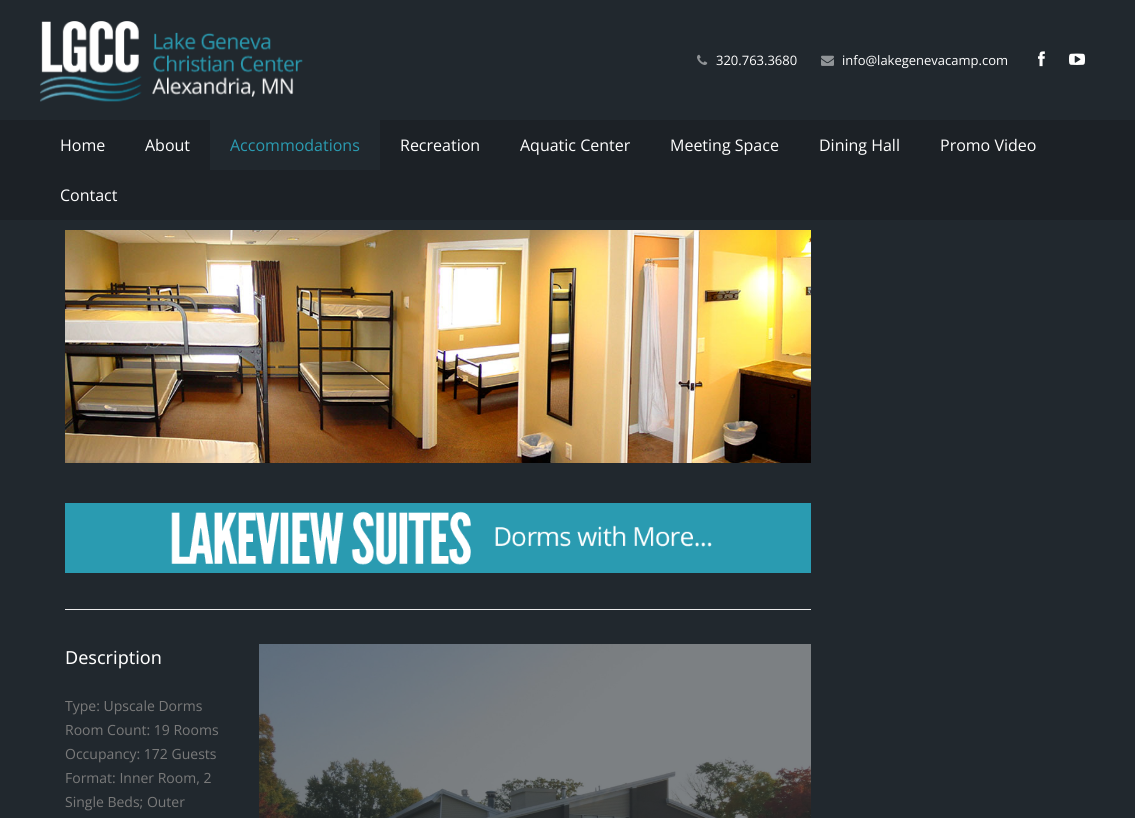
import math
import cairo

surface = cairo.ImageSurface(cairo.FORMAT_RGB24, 1135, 818)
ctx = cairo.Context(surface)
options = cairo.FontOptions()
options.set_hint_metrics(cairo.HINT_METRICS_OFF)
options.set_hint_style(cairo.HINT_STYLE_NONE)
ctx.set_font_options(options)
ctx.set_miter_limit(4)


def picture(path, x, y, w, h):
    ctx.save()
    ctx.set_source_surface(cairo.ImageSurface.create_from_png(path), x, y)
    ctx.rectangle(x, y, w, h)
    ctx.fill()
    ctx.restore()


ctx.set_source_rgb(0.129, 0.157, 0.18)
ctx.paint()
picture("img1.png", 40, 21, 263, 81)
picture("img2.png", 697, 54, 11, 11)
ctx.select_font_face("Open Sans")
ctx.set_font_size(13)
ctx.set_source_rgb(1, 1, 1)
ctx.move_to(716, 65)
ctx.show_text("320.763.3680")
picture("img3.png", 821, 55, 13, 11)
ctx.move_to(842, 65)
ctx.show_text("info@lakegenevacamp.com")
picture("img4.png", 1038, 51, 7, 16)
picture("img5.png", 1069, 53, 16, 12)
ctx.set_source_rgb(0.11, 0.129, 0.149)
ctx.rectangle(0, 120, 1135, 100)
ctx.fill()
ctx.set_font_size(16)
ctx.set_source_rgb(1, 1, 1)
ctx.move_to(60, 151)
ctx.show_text("Home")
ctx.move_to(145, 151)
ctx.show_text("About")
ctx.set_source_rgb(0.129, 0.157, 0.18)
ctx.rectangle(210, 120, 170, 50)
ctx.fill()
ctx.set_source_rgb(0.165, 0.608, 0.694)
ctx.move_to(230, 151)
ctx.show_text("Accommodations")
ctx.set_source_rgb(1, 1, 1)
ctx.move_to(400, 151)
ctx.show_text("Recreation")
ctx.move_to(520, 151)
ctx.show_text("Aquatic Center")
ctx.move_to(670, 151)
ctx.show_text("Meeting Space")
ctx.move_to(819, 151)
ctx.show_text("Dining Hall")
ctx.move_to(940, 151)
ctx.show_text("Promo Video")
ctx.move_to(60, 201)
ctx.show_text("Contact")
picture("img6.png", 65, 230, 746, 233)
ctx.set_source_rgb(0.165, 0.608, 0.694)
ctx.rectangle(65, 503, 746, 70)
ctx.fill()
picture("img7.png", 171, 511, 541, 54)
ctx.set_source_rgb(0.922, 0.922, 0.922)
ctx.rectangle(65, 609, 746, 1)
ctx.fill()
ctx.select_font_face("Noto Sans")
ctx.set_font_size(18)
ctx.set_source_rgb(1, 1, 1)
ctx.move_to(65, 664)
ctx.show_text("Description")
ctx.select_font_face("Open Sans")
ctx.set_font_size(14)
ctx.set_source_rgb(0.478, 0.478, 0.478)
ctx.move_to(65, 711)
ctx.show_text("Type: Upscale Dorms")
ctx.move_to(65, 735)
ctx.show_text("Room Count: 19 Rooms")
ctx.move_to(65, 759)
ctx.show_text("Occupancy: 172 Guests")
ctx.move_to(65, 783)
ctx.show_text("Format: Inner Room, 2")
ctx.move_to(65, 807)
ctx.show_text("Single Beds; Outer")
picture("img8.png", 259, 644, 552, 174)
surface.write_to_png("page.png")
